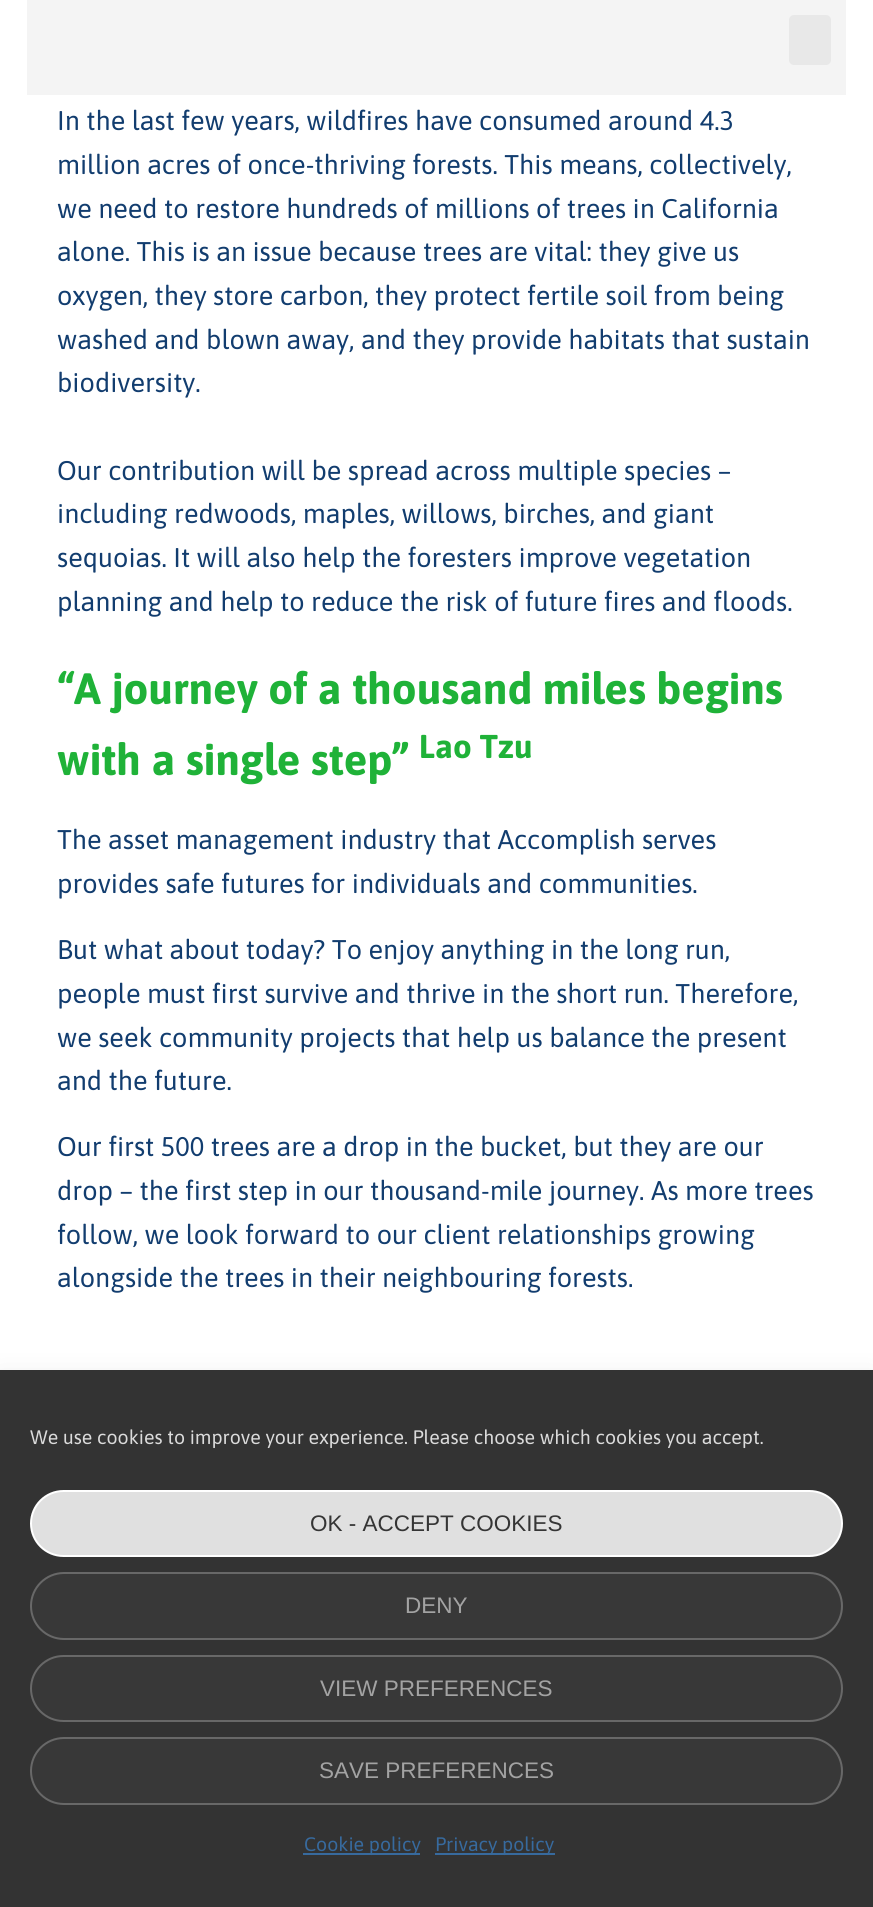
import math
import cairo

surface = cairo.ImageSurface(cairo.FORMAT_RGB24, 873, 1907)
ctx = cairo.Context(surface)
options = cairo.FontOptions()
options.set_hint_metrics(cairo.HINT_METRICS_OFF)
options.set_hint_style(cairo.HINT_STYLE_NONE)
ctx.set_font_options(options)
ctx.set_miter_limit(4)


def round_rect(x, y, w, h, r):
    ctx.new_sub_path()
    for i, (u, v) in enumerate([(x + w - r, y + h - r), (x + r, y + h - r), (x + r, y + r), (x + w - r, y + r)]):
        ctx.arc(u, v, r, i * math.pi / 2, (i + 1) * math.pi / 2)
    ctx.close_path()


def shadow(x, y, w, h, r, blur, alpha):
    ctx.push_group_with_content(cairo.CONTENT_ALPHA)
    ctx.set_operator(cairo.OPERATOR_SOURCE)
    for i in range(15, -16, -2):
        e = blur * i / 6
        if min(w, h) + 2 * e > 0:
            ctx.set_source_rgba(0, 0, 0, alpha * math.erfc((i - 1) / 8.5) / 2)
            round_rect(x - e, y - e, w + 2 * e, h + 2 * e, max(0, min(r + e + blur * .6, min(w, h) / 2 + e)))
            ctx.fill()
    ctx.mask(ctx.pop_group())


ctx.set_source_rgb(1, 1, 1)
ctx.paint()
ctx.set_source_rgb(0.957, 0.957, 0.957)
ctx.rectangle(27, 0, 819, 95)
ctx.fill()
ctx.set_source_rgb(0.91, 0.91, 0.91)
round_rect(789, 15, 42, 50, 5)
ctx.fill()
ctx.select_font_face("Asap")
ctx.set_font_size(27)
ctx.set_source_rgb(0.071, 0.239, 0.435)
ctx.move_to(57, 130)
ctx.show_text("In the last few years, wildfires have consumed around 4.3")
ctx.move_to(57, 174)
ctx.show_text("million acres of once-thriving forests. This means, collectively,")
ctx.move_to(57, 218)
ctx.show_text("we need to restore hundreds of millions of trees in California")
ctx.move_to(57, 261)
ctx.show_text("alone. This is an issue because trees are vital: they give us")
ctx.move_to(57, 305)
ctx.show_text("oxygen, they store carbon, they protect fertile soil from being")
ctx.move_to(57, 349)
ctx.show_text("washed and blown away, and they provide habitats that sustain")
ctx.move_to(57, 392)
ctx.show_text("biodiversity.")
ctx.move_to(57, 480)
ctx.show_text("Our contribution will be spread across multiple species –")
ctx.move_to(57, 523)
ctx.show_text("including redwoods, maples, willows, birches, and giant")
ctx.move_to(57, 567)
ctx.show_text("sequoias. It will also help the foresters improve vegetation")
ctx.move_to(57, 611)
ctx.show_text("planning and help to reduce the risk of future fires and floods.")
ctx.select_font_face("Asap", cairo.FONT_SLANT_NORMAL, cairo.FONT_WEIGHT_BOLD)
ctx.set_font_size(43.75)
ctx.set_source_rgb(0.122, 0.698, 0.22)
ctx.move_to(57, 704)
ctx.show_text("“A journey of a thousand miles begins")
ctx.move_to(57, 775)
ctx.show_text("with a single step”")
ctx.set_font_size(33)
ctx.move_to(419, 758)
ctx.show_text("Lao Tzu")
ctx.select_font_face("Asap")
ctx.set_font_size(27)
ctx.set_source_rgb(0.071, 0.239, 0.435)
ctx.move_to(57, 849)
ctx.show_text("The asset management industry that Accomplish serves")
ctx.move_to(57, 893)
ctx.show_text("provides safe futures for individuals and communities.")
ctx.move_to(57, 959)
ctx.show_text("But what about today? To enjoy anything in the long run,")
ctx.move_to(57, 1003)
ctx.show_text("people must first survive and thrive in the short run. Therefore,")
ctx.move_to(57, 1047)
ctx.show_text("we seek community projects that help us balance the present")
ctx.move_to(57, 1090)
ctx.show_text("and the future.")
ctx.move_to(57, 1156)
ctx.show_text("Our first 500 trees are a drop in the bucket, but they are our")
ctx.move_to(57, 1200)
ctx.show_text("drop – the first step in our thousand-mile journey. As more trees")
ctx.move_to(57, 1244)
ctx.show_text("follow, we look forward to our client relationships growing")
ctx.move_to(57, 1287)
ctx.show_text("alongside the trees in their neighbouring forests.")
ctx.set_source_rgb(0, 0, 0)
shadow(0, 1385, 873, 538, 0, 15, 0.19)
ctx.set_source_rgb(0.2, 0.2, 0.2)
ctx.rectangle(0, 1370, 873, 537)
ctx.fill()
ctx.set_font_size(19.5)
ctx.set_source_rgb(0.859, 0.859, 0.859)
ctx.move_to(30, 1444)
ctx.show_text("We use cookies to improve your experience. Please choose which cookies you accept.")
ctx.set_source_rgb(0.878, 0.878, 0.878)
round_rect(31, 1491, 811, 65, 32.5)
ctx.fill_preserve()
ctx.set_source_rgb(1, 1, 1)
ctx.stroke()
ctx.select_font_face("Liberation Sans")
ctx.set_font_size(22.5)
ctx.set_source_rgb(0.208, 0.208, 0.208)
ctx.move_to(310, 1531)
ctx.show_text("OK - ACCEPT COOKIES")
ctx.set_source_rgb(0.22, 0.22, 0.22)
round_rect(31, 1573, 811, 66, 33)
ctx.fill_preserve()
ctx.set_source_rgb(0.408, 0.408, 0.408)
ctx.stroke()
ctx.set_source_rgb(0.639, 0.639, 0.639)
ctx.move_to(405, 1613)
ctx.show_text("DENY")
ctx.set_source_rgb(0.22, 0.22, 0.22)
round_rect(31, 1656, 811, 65, 32.5)
ctx.fill_preserve()
ctx.set_source_rgb(0.408, 0.408, 0.408)
ctx.stroke()
ctx.set_source_rgb(0.639, 0.639, 0.639)
ctx.move_to(320, 1696)
ctx.show_text("VIEW PREFERENCES")
ctx.set_source_rgb(0.22, 0.22, 0.22)
round_rect(31, 1738, 811, 66, 33)
ctx.fill_preserve()
ctx.set_source_rgb(0.408, 0.408, 0.408)
ctx.stroke()
ctx.set_source_rgb(0.639, 0.639, 0.639)
ctx.move_to(319, 1778)
ctx.show_text("SAVE PREFERENCES")
ctx.set_source_rgb(0.216, 0.416, 0.62)
ctx.rectangle(303, 1853, 117, 2)
ctx.fill()
ctx.select_font_face("Asap")
ctx.set_font_size(19.5)
ctx.move_to(304, 1851)
ctx.show_text("Cookie policy")
ctx.rectangle(435, 1853, 120, 2)
ctx.fill()
ctx.move_to(435, 1851)
ctx.show_text("Privacy policy")
surface.write_to_png("page.png")
